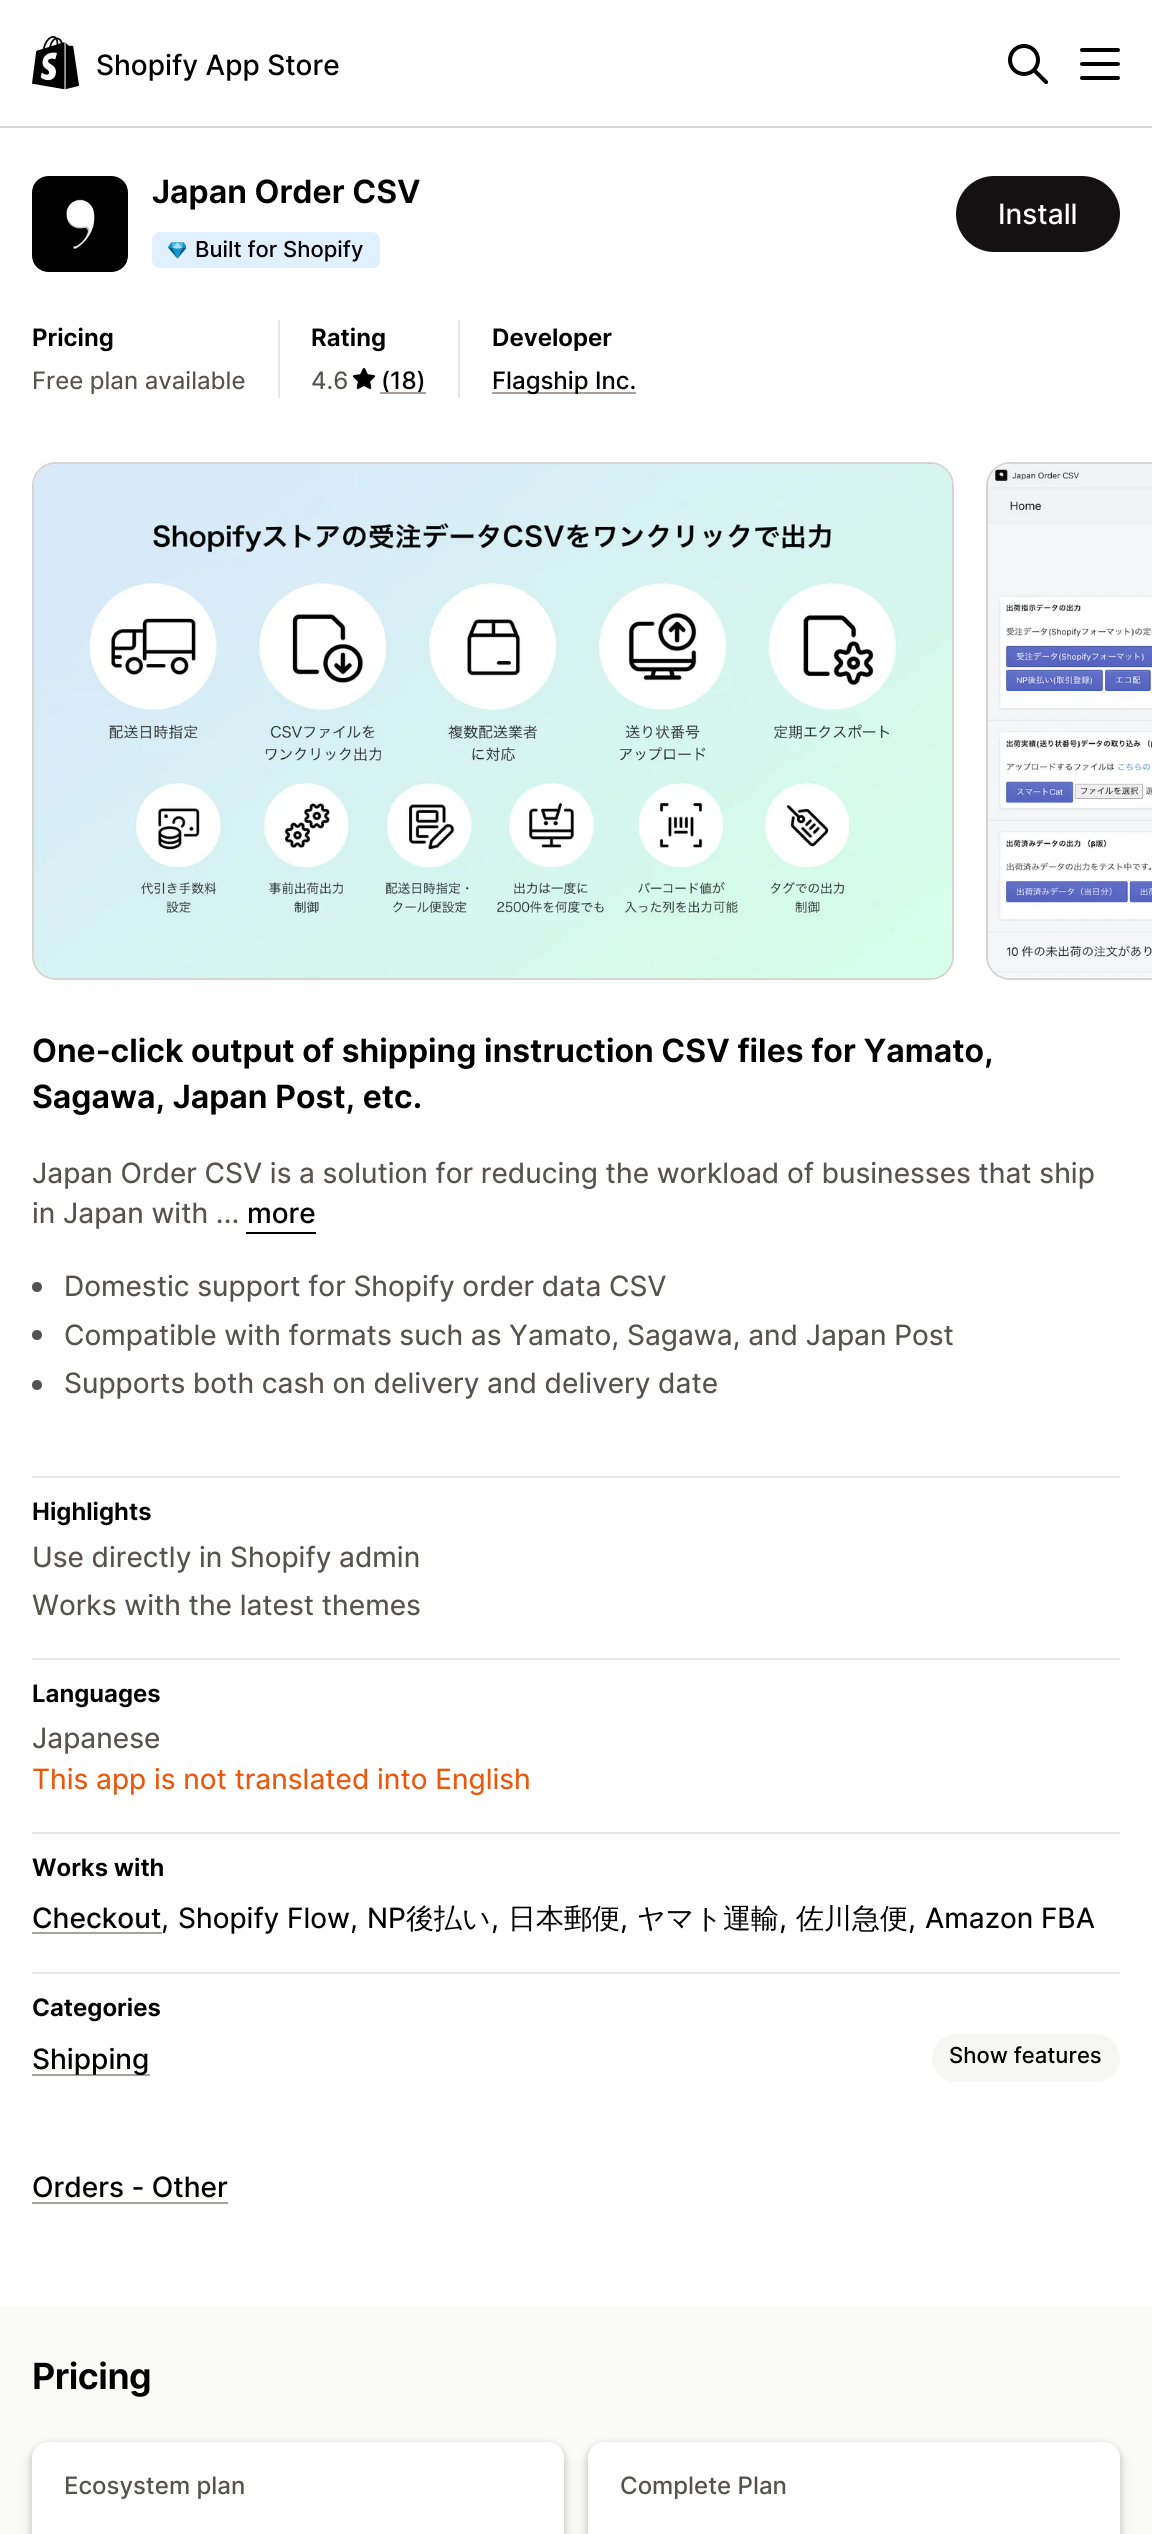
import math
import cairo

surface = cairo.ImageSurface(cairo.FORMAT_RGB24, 1152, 2534)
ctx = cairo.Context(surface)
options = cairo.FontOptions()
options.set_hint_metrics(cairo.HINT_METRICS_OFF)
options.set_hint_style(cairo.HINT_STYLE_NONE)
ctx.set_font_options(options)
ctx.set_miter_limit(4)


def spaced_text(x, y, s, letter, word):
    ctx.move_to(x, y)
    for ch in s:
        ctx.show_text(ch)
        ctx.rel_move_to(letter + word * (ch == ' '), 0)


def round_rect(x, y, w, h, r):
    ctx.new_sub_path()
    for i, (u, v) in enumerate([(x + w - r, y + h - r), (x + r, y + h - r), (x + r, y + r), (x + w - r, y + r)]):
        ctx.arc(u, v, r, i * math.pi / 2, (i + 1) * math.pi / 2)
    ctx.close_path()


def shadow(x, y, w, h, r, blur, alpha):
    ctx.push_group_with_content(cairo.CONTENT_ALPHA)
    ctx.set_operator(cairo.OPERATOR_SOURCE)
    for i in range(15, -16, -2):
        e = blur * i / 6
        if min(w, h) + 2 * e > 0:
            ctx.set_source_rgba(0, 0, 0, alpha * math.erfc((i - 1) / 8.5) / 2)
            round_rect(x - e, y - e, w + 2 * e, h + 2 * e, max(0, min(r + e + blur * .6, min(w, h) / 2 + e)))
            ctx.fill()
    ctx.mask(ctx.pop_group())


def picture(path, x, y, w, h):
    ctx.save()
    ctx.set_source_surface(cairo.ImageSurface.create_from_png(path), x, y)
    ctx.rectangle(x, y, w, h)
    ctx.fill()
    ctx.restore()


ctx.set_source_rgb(1, 1, 1)
ctx.paint()
ctx.set_source_rgb(0.839, 0.827, 0.82)
ctx.rectangle(0, 126, 1152, 2)
ctx.fill()
picture("img1.png", 32, 36, 48, 54)
ctx.select_font_face("Inter Medium")
ctx.set_font_size(28)
ctx.set_source_rgb(0, 0, 0)
ctx.move_to(96, 75)
ctx.show_text("Shopify App Store")
picture("img2.png", 1008, 44, 40, 40)
picture("img3.png", 1080, 48, 40, 32)
picture("img4.png", 32, 176, 96, 96)
round_rect(33, 177, 94, 94, 15)
ctx.set_source_rgba(0, 0, 0, 0.1)
ctx.stroke()
ctx.select_font_face("Inter SemiBold")
ctx.set_font_size(32)
ctx.set_source_rgb(0, 0, 0)
ctx.move_to(152, 203)
ctx.show_text("Japan Order CSV")
ctx.set_source_rgb(0.878, 0.941, 1)
round_rect(152, 232, 228, 36, 8)
ctx.fill()
picture("img5.png", 168, 242, 18, 17)
ctx.select_font_face("Inter Medium")
ctx.set_font_size(22)
ctx.set_source_rgb(0, 0, 0)
ctx.move_to(195, 257)
ctx.show_text("Built for Shopify")
ctx.set_source_rgb(0.906, 0.898, 0.894)
ctx.rectangle(278, 320, 2, 78)
ctx.fill()
ctx.select_font_face("Inter SemiBold")
ctx.set_font_size(24)
ctx.set_source_rgb(0, 0, 0)
ctx.move_to(32, 346)
ctx.show_text("Pricing")
ctx.select_font_face("Inter")
ctx.set_source_rgb(0.337, 0.322, 0.306)
ctx.move_to(32, 389)
ctx.show_text("Free plan available")
ctx.set_source_rgb(0.906, 0.898, 0.894)
ctx.rectangle(458, 320, 2, 78)
ctx.fill()
ctx.select_font_face("Inter SemiBold")
ctx.set_source_rgb(0, 0, 0)
ctx.move_to(311, 346)
ctx.show_text("Rating")
ctx.select_font_face("Inter")
ctx.set_source_rgb(0.337, 0.322, 0.306)
ctx.move_to(311, 389)
ctx.show_text("4.6")
picture("img6.png", 352, 367, 24, 23)
ctx.select_font_face("Inter Medium")
ctx.set_source_rgb(0, 0, 0)
ctx.move_to(381, 389)
ctx.show_text("(18)")
ctx.set_source_rgb(0.659, 0.635, 0.624)
ctx.rectangle(380, 392, 46, 2)
ctx.fill()
ctx.select_font_face("Inter SemiBold")
ctx.set_source_rgb(0, 0, 0)
ctx.move_to(492, 346)
ctx.show_text("Developer")
ctx.set_source_rgb(0.659, 0.635, 0.624)
ctx.rectangle(492, 392, 144, 2)
ctx.fill()
ctx.select_font_face("Inter Medium")
ctx.set_source_rgb(0, 0, 0)
ctx.move_to(492, 389)
ctx.show_text("Flagship Inc.")
ctx.set_source_rgb(0.075, 0.067, 0.067)
round_rect(956, 176, 164, 76, 38)
ctx.fill()
ctx.set_font_size(28)
ctx.set_source_rgb(1, 1, 1)
ctx.move_to(998, 224)
ctx.show_text("Install")
round_rect(33, 463, 920, 516, 23)
ctx.set_source_rgb(0.839, 0.827, 0.82)
ctx.stroke()
picture("img7.png", 34, 464, 918, 514)
round_rect(987, 463, 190, 516, 23)
ctx.stroke()
picture("img8.png", 988, 464, 164, 514)
ctx.select_font_face("Inter SemiBold")
ctx.set_font_size(32)
ctx.set_source_rgb(0, 0, 0)
ctx.move_to(32, 1062)
ctx.show_text("One-click output of shipping instruction CSV files for Yamato,")
ctx.move_to(32, 1108)
ctx.show_text("Sagawa, Japan Post, etc.")
ctx.select_font_face("Inter")
ctx.set_font_size(28)
ctx.set_source_rgb(0.337, 0.322, 0.306)
ctx.move_to(32, 1183)
ctx.show_text("Japan Order CSV is a solution for reducing the workload of businesses that ship")
ctx.move_to(32, 1223)
ctx.show_text("in Japan with ...")
ctx.select_font_face("Inter Medium")
ctx.set_source_rgb(0, 0, 0)
ctx.move_to(247, 1223)
ctx.show_text("more")
ctx.rectangle(246, 1232, 70, 2)
ctx.fill()
ctx.set_source_rgb(0.337, 0.322, 0.306)
ctx.arc(37, 1287, 5, 0, 2 * math.pi)
ctx.fill()
ctx.select_font_face("Inter")
ctx.move_to(64, 1296)
ctx.show_text("Domestic support for Shopify order data CSV")
ctx.new_path()
ctx.arc(37, 1335, 5, 0, 2 * math.pi)
ctx.fill()
ctx.move_to(64, 1345)
ctx.show_text("Compatible with formats such as Yamato, Sagawa, and Japan Post")
ctx.new_path()
ctx.arc(37, 1385, 5, 0, 2 * math.pi)
ctx.fill()
ctx.move_to(64, 1393)
ctx.show_text("Supports both cash on delivery and delivery date")
ctx.set_source_rgb(0.906, 0.898, 0.894)
ctx.rectangle(32, 1476, 1088, 2)
ctx.fill()
ctx.select_font_face("Inter SemiBold")
ctx.set_font_size(24)
ctx.set_source_rgb(0, 0, 0)
ctx.move_to(32, 1520)
ctx.show_text("Highlights")
ctx.select_font_face("Inter")
ctx.set_font_size(28)
ctx.set_source_rgb(0.337, 0.322, 0.306)
ctx.move_to(32, 1567)
ctx.show_text("Use directly in Shopify admin")
ctx.move_to(32, 1615)
ctx.show_text("Works with the latest themes")
ctx.set_source_rgb(0.906, 0.898, 0.894)
ctx.rectangle(32, 1658, 1088, 2)
ctx.fill()
ctx.select_font_face("Inter SemiBold")
ctx.set_font_size(24)
ctx.set_source_rgb(0, 0, 0)
ctx.move_to(32, 1702)
ctx.show_text("Languages")
ctx.select_font_face("Inter")
ctx.set_font_size(28)
ctx.set_source_rgb(0.337, 0.322, 0.306)
ctx.move_to(32, 1748)
ctx.show_text("Japanese")
ctx.set_source_rgb(0.918, 0.345, 0.047)
ctx.move_to(32, 1789)
ctx.show_text("This app is not translated into English")
ctx.set_source_rgb(0.906, 0.898, 0.894)
ctx.rectangle(32, 1832, 1088, 2)
ctx.fill()
ctx.select_font_face("Inter SemiBold")
ctx.set_font_size(24)
ctx.set_source_rgb(0, 0, 0)
ctx.move_to(32, 1876)
ctx.show_text("Works with")
ctx.select_font_face("Inter Medium")
ctx.set_font_size(28)
ctx.move_to(32, 1928)
ctx.show_text("Checkout")
ctx.set_source_rgb(0.659, 0.635, 0.624)
ctx.rectangle(32, 1932, 130, 2)
ctx.fill()
ctx.select_font_face("Inter")
ctx.set_source_rgb(0, 0, 0)
ctx.move_to(161, 1928)
ctx.show_text(",")
ctx.move_to(178, 1928)
ctx.show_text("Shopify Flow,")
ctx.move_to(367, 1928)
ctx.show_text("NP")
ctx.select_font_face("WenQuanYi Zen Hei Medium")
ctx.move_to(406, 1928)
ctx.show_text("後払い")
ctx.select_font_face("Inter")
ctx.move_to(491, 1928)
ctx.show_text(",")
ctx.select_font_face("WenQuanYi Zen Hei Medium")
ctx.move_to(508, 1928)
ctx.show_text("日本郵便")
ctx.select_font_face("Inter")
ctx.move_to(620, 1928)
ctx.show_text(",")
ctx.select_font_face("WenQuanYi Zen Hei Medium")
ctx.move_to(637, 1928)
ctx.show_text("ヤマト運輸")
ctx.select_font_face("Inter")
ctx.move_to(779, 1928)
ctx.show_text(",")
ctx.select_font_face("WenQuanYi Zen Hei Medium")
ctx.move_to(796, 1928)
ctx.show_text("佐川急便")
ctx.select_font_face("Inter")
ctx.move_to(908, 1928)
ctx.show_text(",")
ctx.move_to(925, 1928)
ctx.show_text("Amazon FBA")
ctx.set_source_rgb(0.906, 0.898, 0.894)
ctx.rectangle(32, 1972, 1088, 2)
ctx.fill()
ctx.select_font_face("Inter SemiBold")
ctx.set_font_size(24)
ctx.set_source_rgb(0, 0, 0)
ctx.move_to(32, 2016)
ctx.show_text("Categories")
ctx.set_source_rgb(0.659, 0.635, 0.624)
ctx.rectangle(32, 2074, 118, 2)
ctx.fill()
ctx.select_font_face("Inter Medium")
ctx.set_font_size(28)
ctx.set_source_rgb(0, 0, 0)
ctx.move_to(32, 2069)
ctx.show_text("Shipping")
ctx.set_source_rgb(0.961, 0.961, 0.957)
round_rect(932, 2034, 188, 48, 24)
ctx.fill()
ctx.set_font_size(22)
ctx.set_source_rgb(0, 0, 0)
ctx.move_to(949, 2063)
ctx.show_text("Show features")
ctx.set_font_size(28)
ctx.move_to(32, 2197)
ctx.show_text("Orders - Other")
ctx.set_source_rgb(0.659, 0.635, 0.624)
ctx.rectangle(32, 2202, 196, 2)
ctx.fill()
ctx.set_source_rgb(0.98, 0.98, 0.976)
ctx.rectangle(0, 2306, 1152, 228)
ctx.fill()
ctx.select_font_face("Inter SemiBold")
ctx.set_font_size(36)
ctx.set_source_rgb(0, 0, 0)
spaced_text(32, 2389, "Pricing", -0.5, 0)
ctx.set_source_rgb(0, 0, 0)
shadow(30, 2442, 536, 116, 18, 2, 0.07)
shadow(30, 2444, 536, 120, 18, 4, 0.07)
shadow(30, 2448, 536, 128, 18, 8, 0.07)
ctx.set_source_rgb(1, 1, 1)
round_rect(32, 2442, 532, 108, 16)
ctx.fill()
ctx.select_font_face("Inter Medium")
ctx.set_font_size(24)
ctx.set_source_rgb(0.337, 0.322, 0.306)
ctx.move_to(64, 2494)
ctx.show_text("Ecosystem plan")
ctx.set_source_rgb(0, 0, 0)
shadow(586, 2442, 536, 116, 18, 2, 0.07)
shadow(586, 2444, 536, 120, 18, 4, 0.07)
shadow(586, 2448, 536, 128, 18, 8, 0.07)
ctx.set_source_rgb(1, 1, 1)
round_rect(588, 2442, 532, 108, 16)
ctx.fill()
ctx.set_source_rgb(0.337, 0.322, 0.306)
ctx.move_to(620, 2494)
ctx.show_text("Complete Plan")
surface.write_to_png("page.png")
